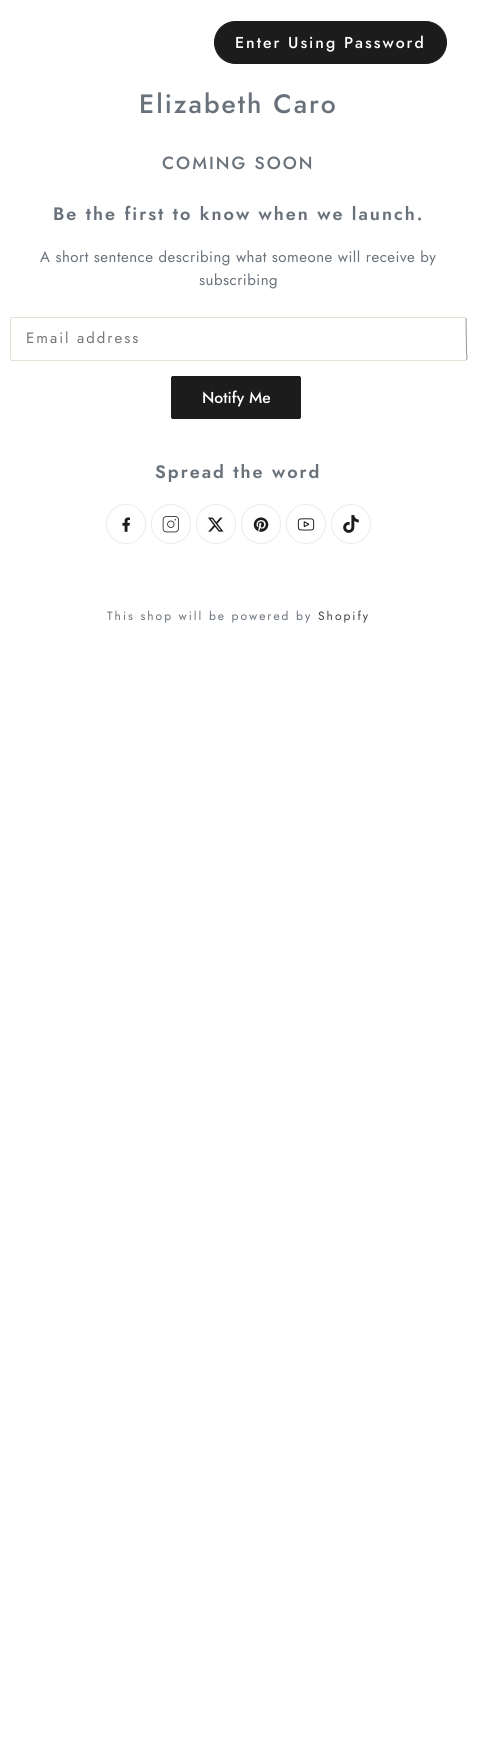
import math
import cairo

surface = cairo.ImageSurface(cairo.FORMAT_RGB24, 477, 1744)
ctx = cairo.Context(surface)
options = cairo.FontOptions()
options.set_hint_metrics(cairo.HINT_METRICS_OFF)
options.set_hint_style(cairo.HINT_STYLE_NONE)
ctx.set_font_options(options)
ctx.set_miter_limit(4)


def spaced_text(x, y, s, letter, word):
    ctx.move_to(x, y)
    for ch in s:
        ctx.show_text(ch)
        ctx.rel_move_to(letter + word * (ch == ' '), 0)


def round_rect(x, y, w, h, r):
    ctx.new_sub_path()
    for i, (u, v) in enumerate([(x + w - r, y + h - r), (x + r, y + h - r), (x + r, y + r), (x + w - r, y + r)]):
        ctx.arc(u, v, r, i * math.pi / 2, (i + 1) * math.pi / 2)
    ctx.close_path()


def picture(path, x, y, w, h):
    ctx.save()
    ctx.set_source_surface(cairo.ImageSurface.create_from_png(path), x, y)
    ctx.rectangle(x, y, w, h)
    ctx.fill()
    ctx.restore()


ctx.set_source_rgb(1, 1, 1)
ctx.paint()
ctx.set_source_rgb(0.11, 0.11, 0.11)
round_rect(214.5, 21.5, 232, 42, 21)
ctx.fill_preserve()
ctx.set_line_width(1)
ctx.stroke()
ctx.select_font_face("Jost Medium")
ctx.set_font_size(15.8)
ctx.set_source_rgb(1, 1, 1)
spaced_text(235, 48, "Enter Using Password", 2, 0)
ctx.set_font_size(26.5)
ctx.set_source_rgb(0.412, 0.447, 0.482)
spaced_text(139, 113, "Elizabeth Caro", 2, 0)
ctx.set_font_size(17.5)
spaced_text(162, 169, "COMING SOON", 2, 0)
ctx.select_font_face("Jost SemiBold")
ctx.set_font_size(18)
spaced_text(53, 220, "Be the first to know when we launch.", 2, 0)
ctx.select_font_face("Jost")
ctx.set_font_size(15)
spaced_text(40, 262, "A short sentence describing what someone will receive by", 0.5, 0)
spaced_text(199, 285, "subscribing", 0.5, 0)
ctx.new_path()
ctx.move_to(466, 318)
ctx.line_to(466.5, 352.5)
ctx.curve_to(466.5, 355, 468, 358, 466, 360)
ctx.set_source_rgb(0.58, 0.58, 0.58)
ctx.stroke()
ctx.new_path()
ctx.move_to(466, 360)
ctx.line_to(465, 360.5)
ctx.line_to(12, 360.5)
ctx.curve_to(9.5, 360.5, 10.5, 355.5, 10.5, 352.5)
ctx.line_to(10.5, 325.5)
ctx.curve_to(10.5, 323.5, 9.5, 318, 11.5, 317.5)
ctx.line_to(465, 317.5)
ctx.line_to(466, 318)
ctx.set_source_rgb(0.89, 0.878, 0.827)
ctx.stroke()
ctx.set_source_rgb(0.459, 0.459, 0.459)
spaced_text(26, 343, "Email address", 2, 0)
ctx.set_source_rgb(0.11, 0.11, 0.11)
round_rect(171.5, 376.5, 129, 42, 1.5)
ctx.fill_preserve()
ctx.stroke()
ctx.select_font_face("Jost Medium")
ctx.set_font_size(15.8)
ctx.set_source_rgb(1, 1, 1)
ctx.move_to(202, 403)
ctx.show_text("Notify Me")
ctx.select_font_face("Jost SemiBold")
ctx.set_font_size(18)
ctx.set_source_rgb(0.412, 0.447, 0.482)
spaced_text(155, 478, "Spread the word", 2, 0)
ctx.new_path()
ctx.arc(126, 524, 19.5, 0, 2 * math.pi)
ctx.set_source_rgb(0.918, 0.918, 0.918)
ctx.stroke()
picture("img1.png", 122, 517, 9, 15)
ctx.arc(171, 524, 19.5, 0, 2 * math.pi)
ctx.stroke()
picture("img2.png", 162, 516, 17, 17)
ctx.arc(216, 524, 19.5, 0, 2 * math.pi)
ctx.stroke()
picture("img3.png", 208, 517, 16, 15)
ctx.arc(261, 524, 19.5, 0, 2 * math.pi)
ctx.stroke()
picture("img4.png", 253, 517, 16, 15)
ctx.arc(306, 524, 19.5, 0, 2 * math.pi)
ctx.stroke()
picture("img5.png", 297, 518, 18, 13)
ctx.arc(351, 524, 19.5, 0, 2 * math.pi)
ctx.stroke()
picture("img6.png", 343, 515, 16, 18)
ctx.select_font_face("Jost")
ctx.set_font_size(12)
ctx.set_source_rgb(0.412, 0.447, 0.482)
spaced_text(107, 620, "This shop will be powered by", 2, 0)
ctx.set_source_rgb(0.239, 0.259, 0.275)
spaced_text(318, 620, "Shopify", 2, 0)
surface.write_to_png("page.png")
